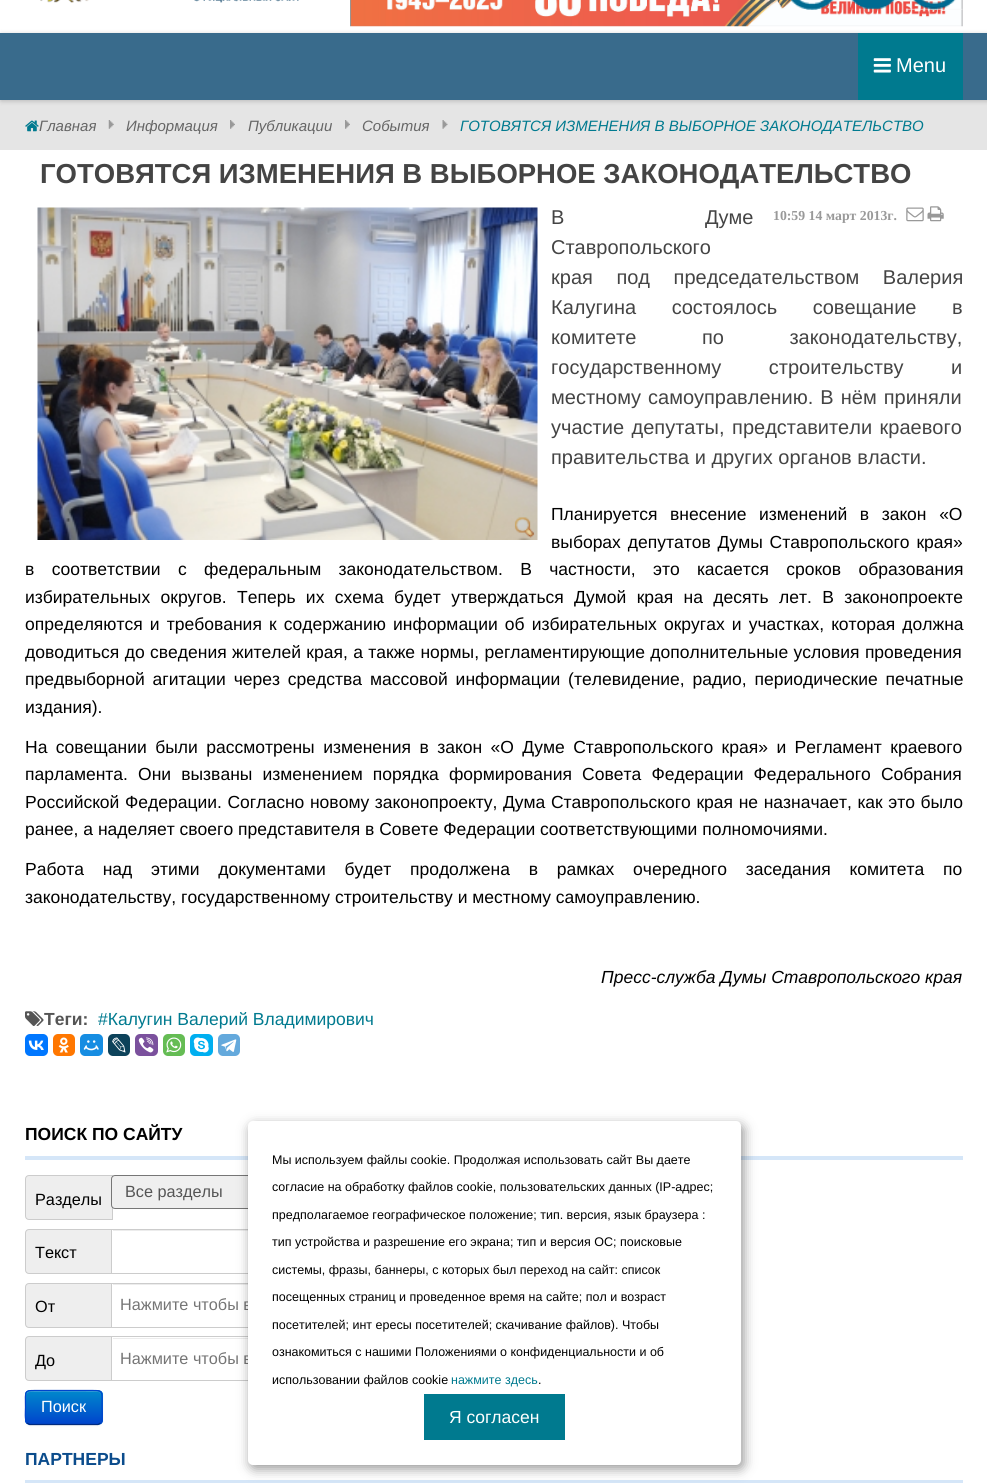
import math
import cairo

surface = cairo.ImageSurface(cairo.FORMAT_RGB24, 987, 1483)
ctx = cairo.Context(surface)
options = cairo.FontOptions()
options.set_hint_metrics(cairo.HINT_METRICS_OFF)
options.set_hint_style(cairo.HINT_STYLE_NONE)
ctx.set_font_options(options)
ctx.set_miter_limit(4)


def spaced_text(x, y, s, letter, word):
    ctx.move_to(x, y)
    for ch in s:
        ctx.show_text(ch)
        ctx.rel_move_to(letter + word * (ch == ' '), 0)


def round_rect(x, y, w, h, r):
    ctx.new_sub_path()
    for i, (u, v) in enumerate([(x + w - r, y + h - r), (x + r, y + h - r), (x + r, y + r), (x + w - r, y + r)]):
        ctx.arc(u, v, r, i * math.pi / 2, (i + 1) * math.pi / 2)
    ctx.close_path()


def shadow(x, y, w, h, r, blur, alpha):
    ctx.push_group_with_content(cairo.CONTENT_ALPHA)
    ctx.set_operator(cairo.OPERATOR_SOURCE)
    for i in range(15, -16, -2):
        e = blur * i / 6
        if min(w, h) + 2 * e > 0:
            ctx.set_source_rgba(0, 0, 0, alpha * math.erfc((i - 1) / 8.5) / 2)
            round_rect(x - e, y - e, w + 2 * e, h + 2 * e, max(0, min(r + e + blur * .6, min(w, h) / 2 + e)))
            ctx.fill()
    ctx.mask(ctx.pop_group())


def picture(path, x, y, w, h):
    ctx.save()
    ctx.set_source_surface(cairo.ImageSurface.create_from_png(path), x, y)
    ctx.rectangle(x, y, w, h)
    ctx.fill()
    ctx.restore()


ctx.set_source_rgb(1, 1, 1)
ctx.paint()
picture("img1.png", 40, 0, 259, 3)
picture("img2.png", 350, 0, 613, 27)
picture("img3.png", 790, 0, 173, 10)
ctx.set_source_rgb(0.898, 0.898, 0.898)
ctx.rectangle(0, 100, 987, 50)
ctx.fill()
ctx.set_source_rgb(0, 0, 0)
shadow(1, 34, 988, 67, 0, 2.5, 0.2)
ctx.set_source_rgb(0.224, 0.42, 0.549)
ctx.rectangle(0, 33, 987, 67)
ctx.fill()
ctx.set_source_rgb(0, 0.478, 0.561)
ctx.rectangle(858, 33, 105, 67)
ctx.fill()
picture("img4.png", 873, 58, 18, 15)
ctx.select_font_face("Liberation Sans")
ctx.set_font_size(20)
ctx.set_source_rgb(1, 1, 1)
ctx.move_to(896, 72)
ctx.show_text("Menu")
picture("img5.png", 25, 120, 14, 12)
ctx.select_font_face("Liberation Sans", cairo.FONT_SLANT_ITALIC)
ctx.set_font_size(15)
ctx.set_source_rgb(0.4, 0.4, 0.4)
ctx.move_to(39, 131)
ctx.show_text("Главная")
picture("img6.png", 108, 120, 6, 9)
ctx.move_to(126, 131)
ctx.show_text("Информация")
picture("img7.png", 230, 120, 5, 9)
ctx.move_to(248, 131)
ctx.show_text("Публикации")
picture("img7.png", 345, 120, 5, 9)
ctx.move_to(362, 131)
ctx.show_text("События")
picture("img8.png", 442, 120, 6, 9)
ctx.set_source_rgb(0, 0.478, 0.561)
ctx.move_to(460, 131)
ctx.show_text("ГОТОВЯТСЯ ИЗМЕНЕНИЯ В ВЫБОРНОЕ ЗАКОНОДАТЕЛЬСТВО")
ctx.select_font_face("Liberation Sans", cairo.FONT_SLANT_NORMAL, cairo.FONT_WEIGHT_BOLD)
ctx.set_font_size(27.5)
ctx.set_source_rgb(0.267, 0.267, 0.267)
ctx.move_to(40, 183)
ctx.show_text("ГОТОВЯТСЯ ИЗМЕНЕНИЯ В ВЫБОРНОЕ ЗАКОНОДАТЕЛЬСТВО")
ctx.select_font_face("Liberation Serif", cairo.FONT_SLANT_NORMAL, cairo.FONT_WEIGHT_BOLD)
ctx.set_font_size(13.75)
ctx.set_source_rgb(0.6, 0.6, 0.6)
ctx.move_to(773, 220)
ctx.show_text("10:59 14 март 2013г.")
picture("img9.png", 906, 207, 18, 15)
picture("img10.png", 927, 206, 17, 16)
picture("img11.png", 37, 207, 501, 333)
picture("img12.png", 514, 517, 21, 21)
ctx.select_font_face("Liberation Sans")
ctx.set_font_size(20)
ctx.set_source_rgb(0.267, 0.267, 0.267)
spaced_text(551, 224, "В Думе", 0, 135)
ctx.move_to(551, 254)
ctx.show_text("Ставропольского")
spaced_text(551, 284, "края под председательством Валерия", 0, 18)
spaced_text(551, 314, "Калугина состоялось совещание в", 0, 30)
spaced_text(551, 344, "комитете по законодательству,", 0, 60)
spaced_text(551, 374, "государственному строительству и", 0, 42)
spaced_text(551, 404, "местному самоуправлению. В нём приняли", 0, 1.5)
spaced_text(551, 434, "участие депутаты, представители краевого", 0, 2)
ctx.move_to(551, 464)
ctx.show_text("правительства и других органов власти.")
ctx.set_font_size(17.5)
ctx.set_source_rgb(0, 0, 0)
spaced_text(551, 520, "Планируется внесение изменений в закон «О", 0, 7.75)
spaced_text(551, 548, "выборах депутатов Думы Ставропольского края»", 0, 2)
spaced_text(25, 575, "в соответствии с федеральным законодательством. В частности, это касается сроков образования", 0, 12.5)
spaced_text(25, 603, "избирательных округов. Теперь их схема будет утверждаться Думой края на десять лет. В законопроекте", 0, 5.5)
spaced_text(25, 630, "определяются и требования к содержанию информации об избирательных округах и участках, которая должна", 0, 2.25)
spaced_text(25, 658, "доводиться до сведения жителей края, а также нормы, регламентирующие дополнительные условия проведения", 0, 0.5)
spaced_text(25, 685, "предвыборной агитации через средства массовой информации (телевидение, радио, периодические печатные", 0, 3)
ctx.move_to(25, 713)
ctx.show_text("издания).")
spaced_text(25, 753, "На совещании были рассмотрены изменения в закон «О Думе Ставропольского края» и Регламент краевого", 0, 3.6)
spaced_text(25, 780, "парламента. Они вызваны изменением порядка формирования Совета Федерации Федерального Собрания", 0, 5.25)
spaced_text(25, 808, "Российской Федерации. Согласно новому законопроекту, Дума Ставропольского края не назначает, как это было", 0, 0.75)
ctx.move_to(25, 835)
ctx.show_text("ранее, а наделяет своего представителя в Совете Федерации соответствующими полномочиями.")
spaced_text(25, 875, "Работа над этими документами будет продолжена в рамках очередного заседания комитета по", 0, 13.9)
ctx.move_to(25, 903)
ctx.show_text("законодательству, государственному строительству и местному самоуправлению.")
ctx.select_font_face("Liberation Sans", cairo.FONT_SLANT_ITALIC)
ctx.move_to(601, 983)
ctx.show_text("Пресс-служба Думы Ставропольского края")
ctx.select_font_face("Liberation Sans", cairo.FONT_SLANT_NORMAL, cairo.FONT_WEIGHT_BOLD)
ctx.set_source_rgb(0.333, 0.333, 0.333)
ctx.move_to(44, 1025)
ctx.show_text("Теги:")
picture("img13.png", 25, 1011, 19, 15)
ctx.select_font_face("Liberation Sans")
ctx.set_source_rgb(0, 0.478, 0.561)
ctx.move_to(98, 1025)
ctx.show_text("#Калугин Валерий Владимирович")
ctx.set_source_rgb(0, 0.467, 1)
round_rect(25, 1034, 23, 22, 5)
ctx.fill()
picture("img14.png", 28, 1040, 16, 10)
ctx.set_source_rgb(1, 0.467, 0)
round_rect(53, 1034, 22, 22, 5)
ctx.fill()
picture("img15.png", 58, 1037, 11, 16)
ctx.set_source_rgb(0.086, 0.553, 0.886)
round_rect(80, 1034, 23, 22, 5)
ctx.fill()
picture("img16.png", 83, 1040, 16, 11)
ctx.set_source_rgb(0.051, 0.259, 0.353)
round_rect(108, 1034, 22, 22, 5)
ctx.fill()
picture("img17.png", 112, 1037, 14, 16)
ctx.set_source_rgb(0.482, 0.318, 0.616)
round_rect(135, 1034, 23, 22, 5)
ctx.fill()
picture("img18.png", 138, 1037, 16, 16)
ctx.set_source_rgb(0.396, 0.737, 0.329)
round_rect(163, 1034, 22, 22, 5)
ctx.fill()
picture("img19.png", 166, 1037, 16, 16)
ctx.set_source_rgb(0, 0.686, 0.941)
round_rect(190, 1034, 23, 22, 5)
ctx.fill()
picture("img20.png", 193, 1037, 16, 16)
ctx.set_source_rgb(0.392, 0.663, 0.863)
round_rect(218, 1034, 22, 22, 5)
ctx.fill()
picture("img21.png", 221, 1039, 16, 13)
ctx.set_source_rgb(0.835, 0.902, 0.969)
ctx.rectangle(25, 1156, 938, 4)
ctx.fill()
ctx.select_font_face("Liberation Sans", cairo.FONT_SLANT_NORMAL, cairo.FONT_WEIGHT_BOLD)
ctx.set_source_rgb(0, 0, 0)
ctx.move_to(25, 1140)
ctx.show_text("ПОИСК ПО САЙТУ")
ctx.set_source_rgb(0.933, 0.933, 0.933)
ctx.new_path()
ctx.move_to(29, 1175.5)
ctx.line_to(112.5, 1175.5)
ctx.line_to(112.5, 1219.5)
ctx.line_to(29, 1219.5)
ctx.curve_to(27, 1219.5, 25.5, 1218, 25.5, 1216)
ctx.line_to(25.5, 1179)
ctx.curve_to(25.5, 1177, 27, 1175.5, 29, 1175.5)
ctx.close_path()
ctx.fill_preserve()
ctx.set_source_rgb(0.8, 0.8, 0.8)
ctx.set_line_width(1)
ctx.stroke()
ctx.select_font_face("Liberation Sans")
ctx.set_font_size(16.25)
ctx.set_source_rgb(0, 0, 0)
ctx.move_to(35, 1205)
ctx.show_text("Разделы")
ctx.set_source_rgb(0.937, 0.937, 0.937)
round_rect(111.5, 1175.5, 271, 33, 3.5)
ctx.fill_preserve()
ctx.set_source_rgb(0.463, 0.463, 0.463)
ctx.stroke()
ctx.set_source_rgb(0.333, 0.333, 0.333)
ctx.move_to(125, 1197)
ctx.show_text("Все разделы")
ctx.set_source_rgb(0.933, 0.933, 0.933)
ctx.new_path()
ctx.move_to(29, 1229.5)
ctx.line_to(112.5, 1229.5)
ctx.line_to(112.5, 1273.5)
ctx.line_to(29, 1273.5)
ctx.curve_to(27, 1273.5, 25.5, 1272, 25.5, 1270)
ctx.line_to(25.5, 1233)
ctx.curve_to(25.5, 1231, 27, 1229.5, 29, 1229.5)
ctx.close_path()
ctx.fill_preserve()
ctx.set_source_rgb(0.8, 0.8, 0.8)
ctx.stroke()
ctx.set_source_rgb(0, 0, 0)
ctx.move_to(35, 1258)
ctx.show_text("Текст")
ctx.set_source_rgb(1, 1, 1)
ctx.rectangle(112, 1230, 1, 43)
ctx.fill()
ctx.set_source_rgb(0.925, 0.925, 0.925)
ctx.new_path()
ctx.move_to(113, 1230)
ctx.line_to(113, 1231)
ctx.line_to(348, 1231)
ctx.curve_to(349, 1231, 350, 1232, 350, 1234)
ctx.curve_to(350, 1232, 350, 1230, 348, 1230)
ctx.close_path()
ctx.fill()
ctx.rectangle(111.5, 1229.5, 239, 44)
ctx.set_source_rgb(0.8, 0.8, 0.8)
ctx.stroke()
ctx.set_source_rgb(0.933, 0.933, 0.933)
ctx.new_path()
ctx.move_to(29, 1283.5)
ctx.line_to(112.5, 1283.5)
ctx.line_to(112.5, 1327.5)
ctx.line_to(29, 1327.5)
ctx.curve_to(27, 1327.5, 25.5, 1326, 25.5, 1324)
ctx.line_to(25.5, 1287)
ctx.curve_to(25.5, 1285, 27, 1283.5, 29, 1283.5)
ctx.close_path()
ctx.fill_preserve()
ctx.set_source_rgb(0.8, 0.8, 0.8)
ctx.stroke()
ctx.set_source_rgb(0, 0, 0)
ctx.move_to(35, 1312)
ctx.show_text("От")
ctx.set_source_rgb(1, 1, 1)
ctx.rectangle(112, 1284, 1, 43)
ctx.fill()
ctx.set_source_rgb(0.925, 0.925, 0.925)
ctx.new_path()
ctx.move_to(113, 1284)
ctx.line_to(113, 1285)
ctx.line_to(348, 1285)
ctx.curve_to(349, 1285, 350, 1286, 350, 1288)
ctx.curve_to(350, 1286, 350, 1284, 348, 1284)
ctx.close_path()
ctx.fill()
ctx.rectangle(111.5, 1283.5, 239, 44)
ctx.set_source_rgb(0.8, 0.8, 0.8)
ctx.stroke()
ctx.set_source_rgb(0.459, 0.459, 0.459)
ctx.move_to(120, 1310)
ctx.show_text("Нажмите чтобы в")
ctx.set_source_rgb(0.933, 0.933, 0.933)
ctx.new_path()
ctx.move_to(29, 1336.5)
ctx.line_to(112.5, 1336.5)
ctx.line_to(112.5, 1380.5)
ctx.line_to(29, 1380.5)
ctx.curve_to(27, 1380.5, 25.5, 1379, 25.5, 1377)
ctx.line_to(25.5, 1340)
ctx.curve_to(25.5, 1338, 27, 1336.5, 29, 1336.5)
ctx.close_path()
ctx.fill_preserve()
ctx.set_source_rgb(0.8, 0.8, 0.8)
ctx.stroke()
ctx.set_source_rgb(0, 0, 0)
ctx.move_to(35, 1366)
ctx.show_text("До")
ctx.set_source_rgb(1, 1, 1)
ctx.rectangle(112, 1337, 1, 43)
ctx.fill()
ctx.set_source_rgb(0.925, 0.925, 0.925)
ctx.new_path()
ctx.move_to(113, 1338)
ctx.line_to(113, 1339)
ctx.line_to(348, 1339)
ctx.curve_to(349, 1339, 350, 1340, 350, 1341)
ctx.curve_to(350, 1339, 349, 1338, 348, 1338)
ctx.close_path()
ctx.fill()
ctx.rectangle(111.5, 1336.5, 239, 44)
ctx.set_source_rgb(0.8, 0.8, 0.8)
ctx.stroke()
ctx.set_source_rgb(0.459, 0.459, 0.459)
ctx.move_to(120, 1364)
ctx.show_text("Нажмите чтобы в")
ctx.set_source_rgb(0, 0, 0)
shadow(25, 1391, 78, 35, 5, 1, 0.05)
ctx.set_source_rgb(0, 0.427, 0.8)
round_rect(25, 1390, 78, 35, 5)
ctx.fill()
ctx.save()
round_rect(25, 1390, 78, 35, 5)
ctx.clip()
gradient = cairo.LinearGradient(64, 1391, 64, 1424)
gradient.add_color_stop_rgba(0, 0, 0.533, 0.8, 1)
gradient.add_color_stop_rgba(1, 0, 0.267, 0.8, 1)
ctx.set_source(gradient)
ctx.rectangle(25, 1391, 78, 33)
ctx.fill()
ctx.restore()
ctx.set_source_rgba(1, 1, 1, 0.2)
ctx.new_path()
ctx.move_to(30, 1392)
ctx.line_to(98, 1392)
ctx.curve_to(100, 1392, 101, 1394, 101, 1396)
ctx.curve_to(101, 1388, 91, 1391, 86, 1391)
ctx.line_to(41, 1391)
ctx.curve_to(36, 1391, 26, 1388, 26, 1396)
ctx.curve_to(26, 1394, 28, 1392, 30, 1392)
ctx.close_path()
ctx.fill()
ctx.new_path()
ctx.move_to(100.5, 1423)
ctx.line_to(98, 1424.5)
ctx.line_to(29.5, 1424.5)
ctx.line_to(27, 1423)
ctx.set_source_rgb(0, 0.165, 0.502)
ctx.set_line_width(1.2)
ctx.stroke()
ctx.new_path()
ctx.move_to(27, 1423)
ctx.curve_to(24.5, 1420.5, 25.5, 1410.5, 25.5, 1407.5)
ctx.curve_to(25.5, 1389, 23, 1390.5, 41, 1390.5)
ctx.line_to(86, 1390.5)
ctx.curve_to(104.5, 1390.5, 102, 1389, 102, 1407.5)
ctx.curve_to(102, 1410.5, 103, 1420.5, 100.5, 1423)
ctx.set_source_rgb(0, 0.267, 0.8)
ctx.stroke()
ctx.set_source_rgb(1, 1, 1)
ctx.move_to(41, 1412)
ctx.show_text("Поиск")
ctx.set_source_rgb(0.835, 0.902, 0.969)
ctx.rectangle(25, 1480, 938, 3)
ctx.fill()
ctx.set_source_rgb(0, 0, 0)
shadow(250, 1125, 494, 344, 5, 6, 0.4)
ctx.set_source_rgb(1, 1, 1)
round_rect(248, 1121, 493, 344, 5)
ctx.fill()
ctx.set_font_size(12.5)
ctx.set_source_rgb(0, 0, 0)
ctx.move_to(272, 1164)
ctx.show_text("Мы используем файлы cookie. Продолжая использовать сайт Вы даете")
ctx.move_to(272, 1191)
ctx.show_text("согласие на обработку файлов cookie, пользовательских данных (IP-адрес;")
ctx.move_to(272, 1219)
ctx.show_text("предполагаемое географическое положение; тип. версия, язык браузера :")
ctx.move_to(272, 1246)
ctx.show_text("тип устройства и разрешение его экрана; тип и версия ОС; поисковые")
ctx.move_to(272, 1274)
ctx.show_text("системы, фразы, баннеры, с которых был переход на сайт: список")
ctx.move_to(272, 1301)
ctx.show_text("посещенных страниц и проведенное время на сайте; пол и возраст")
ctx.move_to(272, 1329)
ctx.show_text("посетителей; инт ересы посетителей; скачивание файлов). Чтобы")
ctx.move_to(272, 1356)
ctx.show_text("ознакомиться с нашими Положениями о конфиденциальности и об")
ctx.move_to(272, 1384)
ctx.show_text("использовании файлов cookie")
ctx.set_source_rgb(0, 0.478, 0.561)
ctx.move_to(451, 1384)
ctx.show_text("нажмите здесь")
ctx.set_source_rgb(0, 0, 0)
ctx.move_to(538, 1384)
ctx.show_text(".")
ctx.set_source_rgb(0, 0.478, 0.561)
ctx.rectangle(424, 1394, 141, 46)
ctx.fill()
ctx.set_font_size(17.5)
ctx.set_source_rgb(1, 1, 1)
ctx.move_to(449, 1423)
ctx.show_text("Я согласен")
ctx.select_font_face("Liberation Sans", cairo.FONT_SLANT_NORMAL, cairo.FONT_WEIGHT_BOLD)
ctx.set_source_rgb(0.043, 0.298, 0.549)
ctx.move_to(25, 1465)
ctx.show_text("ПАРТНЕРЫ")
surface.write_to_png("page.png")
